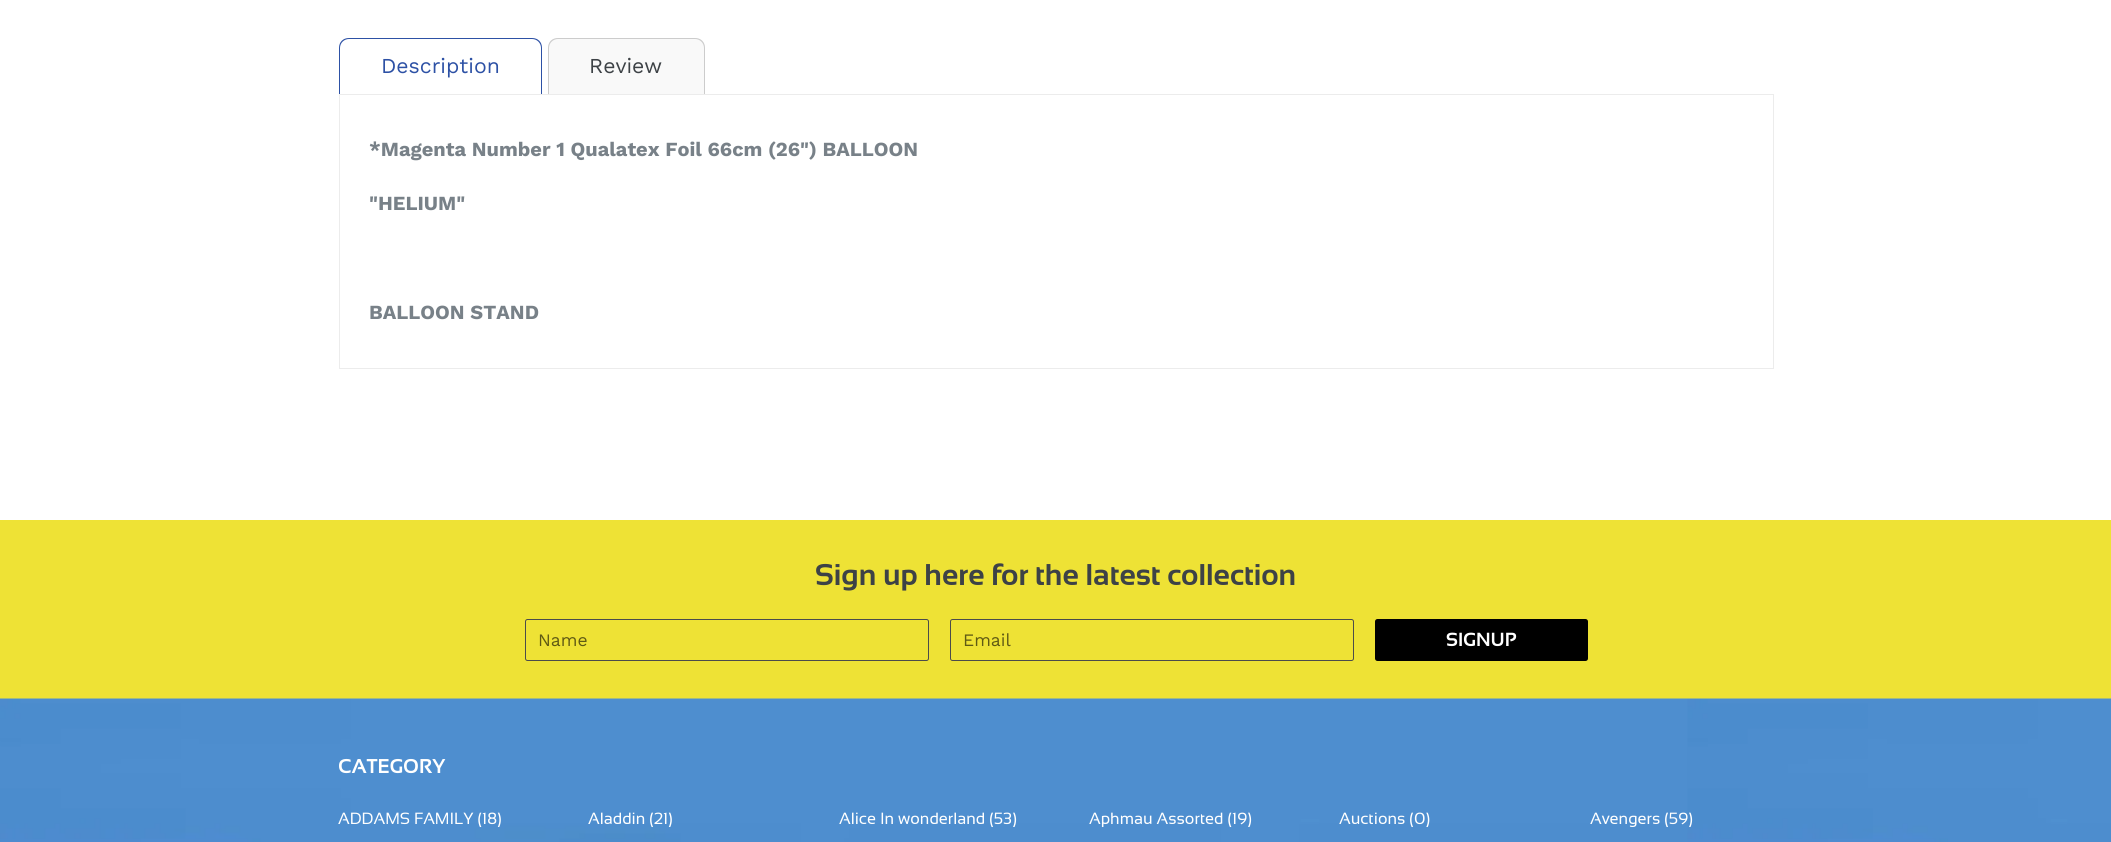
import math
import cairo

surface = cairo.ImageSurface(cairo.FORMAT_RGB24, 2111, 842)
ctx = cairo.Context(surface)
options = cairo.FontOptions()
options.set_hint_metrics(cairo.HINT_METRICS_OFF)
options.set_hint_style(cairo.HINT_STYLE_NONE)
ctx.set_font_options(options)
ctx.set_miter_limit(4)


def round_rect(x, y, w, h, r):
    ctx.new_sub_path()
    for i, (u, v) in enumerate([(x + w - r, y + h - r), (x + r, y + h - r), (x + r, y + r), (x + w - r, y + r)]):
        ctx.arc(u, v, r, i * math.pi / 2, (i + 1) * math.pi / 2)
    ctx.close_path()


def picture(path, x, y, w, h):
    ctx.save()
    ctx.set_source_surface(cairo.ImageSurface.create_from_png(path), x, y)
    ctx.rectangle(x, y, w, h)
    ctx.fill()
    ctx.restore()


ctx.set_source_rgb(1, 1, 1)
ctx.paint()
ctx.set_source_rgb(0.176, 0.318, 0.647)
ctx.set_fill_rule(cairo.FILL_RULE_EVEN_ODD)
ctx.new_path()
ctx.move_to(349, 38)
ctx.line_to(532, 38)
ctx.curve_to(538, 38, 542, 42, 542, 48)
ctx.line_to(542, 94)
ctx.line_to(339, 94)
ctx.line_to(339, 48)
ctx.curve_to(339, 42, 343, 38, 349, 38)
ctx.close_path()
ctx.move_to(349, 39)
ctx.line_to(532, 39)
ctx.curve_to(537, 39, 541, 43, 541, 48)
ctx.line_to(541, 94)
ctx.line_to(340, 94)
ctx.line_to(340, 48)
ctx.curve_to(340, 43, 344, 39, 349, 39)
ctx.close_path()
ctx.fill()
ctx.select_font_face("Work Sans")
ctx.set_font_size(21.25)
ctx.move_to(381, 73)
ctx.show_text("Description")
ctx.set_source_rgb(0.976, 0.976, 0.976)
ctx.new_path()
ctx.move_to(558, 38)
ctx.line_to(695, 38)
ctx.curve_to(700.5, 38, 705, 42.5, 705, 48)
ctx.line_to(705, 94)
ctx.line_to(548, 94)
ctx.line_to(548, 48)
ctx.curve_to(548, 42.5, 552.5, 38, 558, 38)
ctx.close_path()
ctx.fill()
ctx.set_source_rgb(0.8, 0.8, 0.8)
ctx.new_path()
ctx.move_to(558, 38)
ctx.line_to(695, 38)
ctx.curve_to(701, 38, 705, 42, 705, 48)
ctx.line_to(705, 94)
ctx.line_to(548, 94)
ctx.line_to(548, 48)
ctx.curve_to(548, 42, 552, 38, 558, 38)
ctx.close_path()
ctx.move_to(558, 39)
ctx.line_to(695, 39)
ctx.curve_to(700, 39, 704, 43, 704, 48)
ctx.line_to(704, 94)
ctx.line_to(549, 94)
ctx.line_to(549, 48)
ctx.curve_to(549, 43, 553, 39, 558, 39)
ctx.close_path()
ctx.fill()
ctx.set_source_rgb(0.239, 0.259, 0.275)
ctx.move_to(589, 73)
ctx.show_text("Review")
ctx.rectangle(339.5, 94.5, 1434, 274)
ctx.set_source_rgb(0.925, 0.925, 0.925)
ctx.set_line_width(1)
ctx.stroke()
ctx.select_font_face("Work Sans", cairo.FONT_SLANT_NORMAL, cairo.FONT_WEIGHT_BOLD)
ctx.set_font_size(20)
ctx.set_source_rgb(0.471, 0.506, 0.533)
ctx.move_to(369, 156)
ctx.show_text("*Magenta Number 1 Qualatex Foil 66cm (26\") BALLOON")
ctx.move_to(369, 210)
ctx.show_text("\"HELIUM\"")
ctx.move_to(369, 319)
ctx.show_text("BALLOON STAND")
ctx.set_source_rgb(0.933, 0.886, 0.208)
ctx.rectangle(0, 520, 2111, 179)
ctx.fill()
ctx.select_font_face("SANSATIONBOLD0", cairo.FONT_SLANT_NORMAL, cairo.FONT_WEIGHT_BOLD)
ctx.set_font_size(30)
ctx.set_source_rgb(0.239, 0.259, 0.275)
ctx.move_to(815, 585)
ctx.show_text("Sign up here for the latest collection")
round_rect(525.5, 619.5, 403, 41, 2)
ctx.set_source_rgb(0.294, 0.294, 0.294)
ctx.stroke()
ctx.select_font_face("Work Sans")
ctx.set_font_size(17.5)
ctx.set_source_rgb(0.373, 0.353, 0.082)
ctx.move_to(538, 646)
ctx.show_text("Name")
round_rect(950.5, 619.5, 403, 41, 2)
ctx.set_source_rgb(0.294, 0.294, 0.294)
ctx.stroke()
ctx.set_source_rgb(0.373, 0.353, 0.082)
ctx.move_to(963, 646)
ctx.show_text("Email")
ctx.set_source_rgb(0, 0, 0)
round_rect(1375, 619, 213, 42, 2.5)
ctx.fill()
ctx.select_font_face("SANSATIONBOLD0", cairo.FONT_SLANT_NORMAL, cairo.FONT_WEIGHT_BOLD)
ctx.set_font_size(19)
ctx.set_source_rgb(1, 1, 1)
ctx.move_to(1446, 646)
ctx.show_text("SIGNUP")
picture("img1.png", 0, 698, 2111, 144)
ctx.set_font_size(20)
ctx.move_to(338, 773)
ctx.show_text("CATEGORY")
ctx.select_font_face("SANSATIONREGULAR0")
ctx.set_font_size(16.25)
ctx.move_to(338, 824)
ctx.show_text("ADDAMS FAMILY (18)")
ctx.move_to(588, 824)
ctx.show_text("Aladdin (21)")
ctx.move_to(839, 824)
ctx.show_text("Alice In wonderland (53)")
ctx.move_to(1089, 824)
ctx.show_text("Aphmau Assorted (19)")
ctx.move_to(1339, 824)
ctx.show_text("Auctions (0)")
ctx.move_to(1590, 824)
ctx.show_text("Avengers (59)")
surface.write_to_png("page.png")
